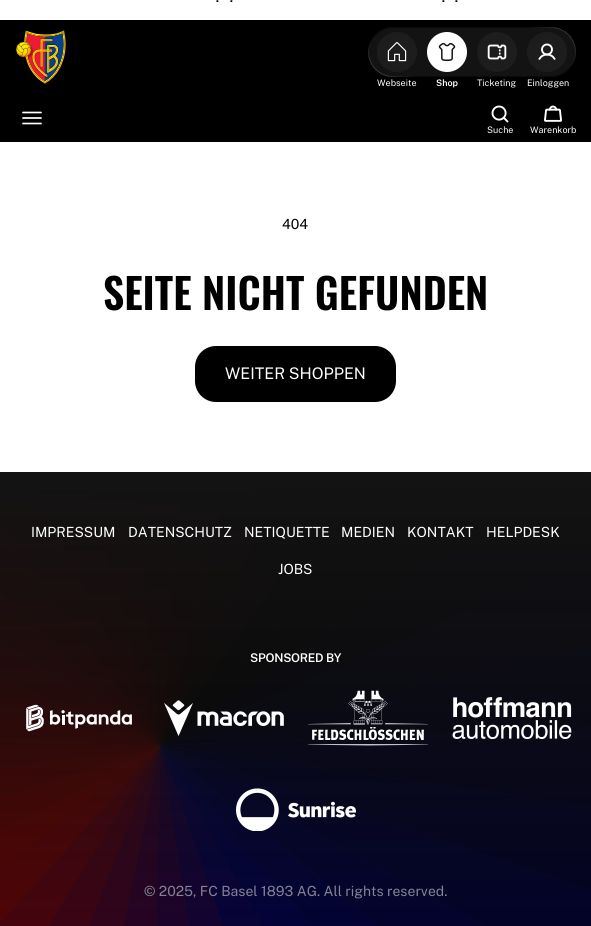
import math
import cairo

surface = cairo.ImageSurface(cairo.FORMAT_RGB24, 591, 926)
ctx = cairo.Context(surface)
options = cairo.FontOptions()
options.set_hint_metrics(cairo.HINT_METRICS_OFF)
options.set_hint_style(cairo.HINT_STYLE_NONE)
ctx.set_font_options(options)
ctx.set_miter_limit(4)


def spaced_text(x, y, s, letter, word):
    ctx.move_to(x, y)
    for ch in s:
        ctx.show_text(ch)
        ctx.rel_move_to(letter + word * (ch == ' '), 0)


def round_rect(x, y, w, h, r):
    ctx.new_sub_path()
    for i, (u, v) in enumerate([(x + w - r, y + h - r), (x + r, y + h - r), (x + r, y + r), (x + w - r, y + r)]):
        ctx.arc(u, v, r, i * math.pi / 2, (i + 1) * math.pi / 2)
    ctx.close_path()


def picture(path, x, y, w, h):
    ctx.save()
    ctx.set_source_surface(cairo.ImageSurface.create_from_png(path), x, y)
    ctx.rectangle(x, y, w, h)
    ctx.fill()
    ctx.restore()


ctx.set_source_rgb(1, 1, 1)
ctx.paint()
ctx.select_font_face("Public Sans ExtraBold")
ctx.set_font_size(10)
ctx.set_source_rgb(0, 0, 0)
ctx.move_to(216, 2)
ctx.show_text(".")
ctx.move_to(230, 2)
ctx.show_text(".")
ctx.move_to(442, 2)
ctx.show_text(".")
ctx.move_to(455, 2)
ctx.show_text(".")
ctx.rectangle(0, 20, 591, 122)
ctx.fill()
picture("img1.png", 16, 30, 50, 54)
gradient = cairo.LinearGradient(415, 118, 529, -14)
gradient.add_color_stop_rgba(0, 0.341, 0.341, 0.341, 1)
gradient.add_color_stop_rgba(0.17, 0.02, 0.02, 0.02, 1)
ctx.set_source(gradient)
round_rect(368, 27, 208, 50, 25)
ctx.fill()
gradient = cairo.LinearGradient(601, -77, 408, 117)
gradient.add_color_stop_rgba(0, 1, 1, 1, 1)
gradient.add_color_stop_rgba(0.45, 1, 1, 1, 0.02)
ctx.set_source(gradient)
round_rect(368, 27, 208, 50, 25)
ctx.fill()
ctx.set_source_rgb(0.075, 0.075, 0.075)
round_rect(369, 28, 206, 48, 24)
ctx.fill()
ctx.set_source_rgb(0.114, 0.114, 0.114)
ctx.arc(397, 52, 20, 0, 2 * math.pi)
ctx.fill()
picture("img2.png", 387, 42, 20, 20)
ctx.select_font_face("Public Sans")
ctx.set_font_size(9)
ctx.set_source_rgb(1, 1, 1)
ctx.move_to(377, 86)
ctx.show_text("Webseite")
ctx.new_path()
ctx.arc(447, 52, 20, 0, 2 * math.pi)
ctx.fill()
picture("img3.png", 438, 42, 18, 20)
ctx.select_font_face("Public Sans SemiBold")
ctx.move_to(436, 86)
ctx.show_text("Shop")
ctx.set_source_rgb(0.114, 0.114, 0.114)
ctx.new_path()
ctx.arc(497, 52, 20, 0, 2 * math.pi)
ctx.fill()
picture("img4.png", 487, 44, 20, 16)
ctx.select_font_face("Public Sans")
ctx.set_source_rgb(1, 1, 1)
ctx.move_to(477, 86)
ctx.show_text("Ticketing")
ctx.set_source_rgb(0.114, 0.114, 0.114)
ctx.new_path()
ctx.arc(547, 52, 20, 0, 2 * math.pi)
ctx.fill()
picture("img5.png", 538, 43, 18, 17)
ctx.set_source_rgb(1, 1, 1)
ctx.move_to(527, 86)
ctx.show_text("Einloggen")
ctx.new_path()
ctx.move_to(41, 112.5)
ctx.line_to(23, 112.5)
ctx.move_to(41, 118)
ctx.line_to(23, 118)
ctx.move_to(41, 123.5)
ctx.line_to(23, 123.5)
ctx.set_line_width(1.7)
ctx.set_line_cap(cairo.LINE_CAP_ROUND)
ctx.stroke()
picture("img6.png", 491, 105, 18, 18)
ctx.move_to(487, 133)
ctx.show_text("Suche")
picture("img7.png", 544, 105, 18, 17)
ctx.move_to(530, 133)
ctx.show_text("Warenkorb")
ctx.set_font_size(14)
ctx.set_source_rgb(0, 0, 0)
ctx.move_to(282, 229)
ctx.show_text("404")
ctx.select_font_face("Oswald SemiBold")
ctx.set_font_size(42)
ctx.move_to(103, 310)
ctx.show_text("SEITE NICHT GEFUNDEN")
round_rect(195, 346, 201, 56, 21)
ctx.fill()
ctx.select_font_face("Public Sans")
ctx.set_font_size(16)
ctx.set_source_rgb(1, 1, 1)
ctx.move_to(225, 379)
ctx.show_text("WEITER SHOPPEN")
ctx.set_source_rgb(0.075, 0.075, 0.075)
ctx.rectangle(0, 475, 591, 451)
ctx.fill()
picture("img8.png", 0, 475, 591, 451)
gradient = cairo.LinearGradient(295, 472, 296, 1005)
gradient.add_color_stop_rgba(0, 0.075, 0.075, 0.075, 1)
gradient.add_color_stop_rgba(1, 0.075, 0.075, 0.075, 0)
ctx.set_source(gradient)
ctx.rectangle(0, 472, 591, 454)
ctx.fill()
ctx.set_font_size(14)
ctx.set_source_rgb(1, 1, 1)
ctx.move_to(31, 537)
ctx.show_text("IMPRESSUM")
ctx.move_to(128, 537)
ctx.show_text("DATENSCHUTZ")
ctx.move_to(244, 537)
ctx.show_text("NETIQUETTE")
ctx.move_to(341, 537)
ctx.show_text("MEDIEN")
ctx.move_to(407, 537)
ctx.show_text("KONTAKT")
ctx.move_to(486, 537)
ctx.show_text("HELPDESK")
ctx.move_to(278, 574)
ctx.show_text("JOBS")
ctx.select_font_face("Public Sans SemiBold")
ctx.set_font_size(12)
spaced_text(250, 662, "SPONSORED BY", -0.25, 0)
picture("img9.png", 26, 704, 106, 28)
picture("img10.png", 164, 700, 120, 36)
picture("img11.png", 308, 690, 120, 56)
picture("img12.png", 452, 697, 120, 42)
picture("img13.png", 236, 788, 120, 43)
ctx.select_font_face("Public Sans")
ctx.set_font_size(14)
ctx.set_source_rgb(0.518, 0.51, 0.588)
ctx.move_to(144, 896)
ctx.show_text("© 2025, FC Basel 1893 AG. All rights reserved.")
surface.write_to_png("page.png")
